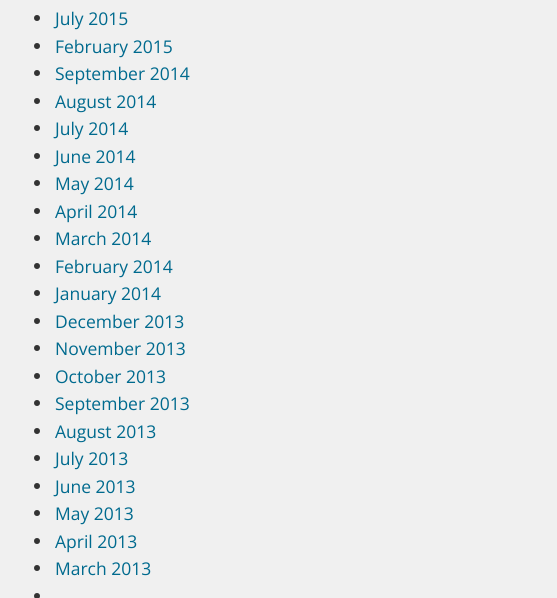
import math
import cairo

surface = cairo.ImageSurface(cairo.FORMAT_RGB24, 557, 598)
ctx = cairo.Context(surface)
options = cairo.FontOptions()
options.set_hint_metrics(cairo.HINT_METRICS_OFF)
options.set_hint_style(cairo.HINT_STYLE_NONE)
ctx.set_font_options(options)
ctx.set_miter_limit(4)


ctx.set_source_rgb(0.941, 0.941, 0.941)
ctx.paint()
ctx.set_source_rgb(0.2, 0.2, 0.2)
ctx.arc(37, 18, 3, 0, 2 * math.pi)
ctx.fill()
ctx.select_font_face("Open Sans")
ctx.set_font_size(17.5)
ctx.set_source_rgb(0, 0.416, 0.557)
ctx.move_to(55, 25)
ctx.show_text("July 2015")
ctx.set_source_rgb(0.2, 0.2, 0.2)
ctx.new_path()
ctx.arc(37, 46, 3, 0, 2 * math.pi)
ctx.fill()
ctx.set_source_rgb(0, 0.416, 0.557)
ctx.move_to(55, 53)
ctx.show_text("February 2015")
ctx.set_source_rgb(0.2, 0.2, 0.2)
ctx.new_path()
ctx.arc(37, 73, 3, 0, 2 * math.pi)
ctx.fill()
ctx.set_source_rgb(0, 0.416, 0.557)
ctx.move_to(55, 80)
ctx.show_text("September 2014")
ctx.set_source_rgb(0.2, 0.2, 0.2)
ctx.new_path()
ctx.arc(37, 101, 3, 0, 2 * math.pi)
ctx.fill()
ctx.set_source_rgb(0, 0.416, 0.557)
ctx.move_to(55, 108)
ctx.show_text("August 2014")
ctx.set_source_rgb(0.2, 0.2, 0.2)
ctx.new_path()
ctx.arc(37, 128, 3, 0, 2 * math.pi)
ctx.fill()
ctx.set_source_rgb(0, 0.416, 0.557)
ctx.move_to(55, 135)
ctx.show_text("July 2014")
ctx.set_source_rgb(0.2, 0.2, 0.2)
ctx.new_path()
ctx.arc(37, 156, 3, 0, 2 * math.pi)
ctx.fill()
ctx.set_source_rgb(0, 0.416, 0.557)
ctx.move_to(55, 163)
ctx.show_text("June 2014")
ctx.set_source_rgb(0.2, 0.2, 0.2)
ctx.new_path()
ctx.arc(37, 183, 3, 0, 2 * math.pi)
ctx.fill()
ctx.set_source_rgb(0, 0.416, 0.557)
ctx.move_to(55, 190)
ctx.show_text("May 2014")
ctx.set_source_rgb(0.2, 0.2, 0.2)
ctx.new_path()
ctx.arc(37, 211, 3, 0, 2 * math.pi)
ctx.fill()
ctx.set_source_rgb(0, 0.416, 0.557)
ctx.move_to(55, 218)
ctx.show_text("April 2014")
ctx.set_source_rgb(0.2, 0.2, 0.2)
ctx.new_path()
ctx.arc(37, 238, 3, 0, 2 * math.pi)
ctx.fill()
ctx.set_source_rgb(0, 0.416, 0.557)
ctx.move_to(55, 245)
ctx.show_text("March 2014")
ctx.set_source_rgb(0.2, 0.2, 0.2)
ctx.new_path()
ctx.arc(37, 266, 3, 0, 2 * math.pi)
ctx.fill()
ctx.set_source_rgb(0, 0.416, 0.557)
ctx.move_to(55, 273)
ctx.show_text("February 2014")
ctx.set_source_rgb(0.2, 0.2, 0.2)
ctx.new_path()
ctx.arc(37, 293, 3, 0, 2 * math.pi)
ctx.fill()
ctx.set_source_rgb(0, 0.416, 0.557)
ctx.move_to(55, 300)
ctx.show_text("January 2014")
ctx.set_source_rgb(0.2, 0.2, 0.2)
ctx.new_path()
ctx.arc(37, 321, 3, 0, 2 * math.pi)
ctx.fill()
ctx.set_source_rgb(0, 0.416, 0.557)
ctx.move_to(55, 328)
ctx.show_text("December 2013")
ctx.set_source_rgb(0.2, 0.2, 0.2)
ctx.new_path()
ctx.arc(37, 348, 3, 0, 2 * math.pi)
ctx.fill()
ctx.set_source_rgb(0, 0.416, 0.557)
ctx.move_to(55, 355)
ctx.show_text("November 2013")
ctx.set_source_rgb(0.2, 0.2, 0.2)
ctx.new_path()
ctx.arc(37, 376, 3, 0, 2 * math.pi)
ctx.fill()
ctx.set_source_rgb(0, 0.416, 0.557)
ctx.move_to(55, 383)
ctx.show_text("October 2013")
ctx.set_source_rgb(0.2, 0.2, 0.2)
ctx.new_path()
ctx.arc(37, 403, 3, 0, 2 * math.pi)
ctx.fill()
ctx.set_source_rgb(0, 0.416, 0.557)
ctx.move_to(55, 410)
ctx.show_text("September 2013")
ctx.set_source_rgb(0.2, 0.2, 0.2)
ctx.new_path()
ctx.arc(37, 431, 3, 0, 2 * math.pi)
ctx.fill()
ctx.set_source_rgb(0, 0.416, 0.557)
ctx.move_to(55, 438)
ctx.show_text("August 2013")
ctx.set_source_rgb(0.2, 0.2, 0.2)
ctx.new_path()
ctx.arc(37, 458, 3, 0, 2 * math.pi)
ctx.fill()
ctx.set_source_rgb(0, 0.416, 0.557)
ctx.move_to(55, 465)
ctx.show_text("July 2013")
ctx.set_source_rgb(0.2, 0.2, 0.2)
ctx.new_path()
ctx.arc(37, 486, 3, 0, 2 * math.pi)
ctx.fill()
ctx.set_source_rgb(0, 0.416, 0.557)
ctx.move_to(55, 493)
ctx.show_text("June 2013")
ctx.set_source_rgb(0.2, 0.2, 0.2)
ctx.new_path()
ctx.arc(37, 513, 3, 0, 2 * math.pi)
ctx.fill()
ctx.set_source_rgb(0, 0.416, 0.557)
ctx.move_to(55, 520)
ctx.show_text("May 2013")
ctx.set_source_rgb(0.2, 0.2, 0.2)
ctx.new_path()
ctx.arc(37, 541, 3, 0, 2 * math.pi)
ctx.fill()
ctx.set_source_rgb(0, 0.416, 0.557)
ctx.move_to(55, 548)
ctx.show_text("April 2013")
ctx.set_source_rgb(0.2, 0.2, 0.2)
ctx.new_path()
ctx.arc(37, 568, 3, 0, 2 * math.pi)
ctx.fill()
ctx.set_source_rgb(0, 0.416, 0.557)
ctx.move_to(55, 575)
ctx.show_text("March 2013")
ctx.set_source_rgb(0.2, 0.2, 0.2)
ctx.new_path()
ctx.arc(37, 596, 3, 0, 2 * math.pi)
ctx.fill()
surface.write_to_png("page.png")
